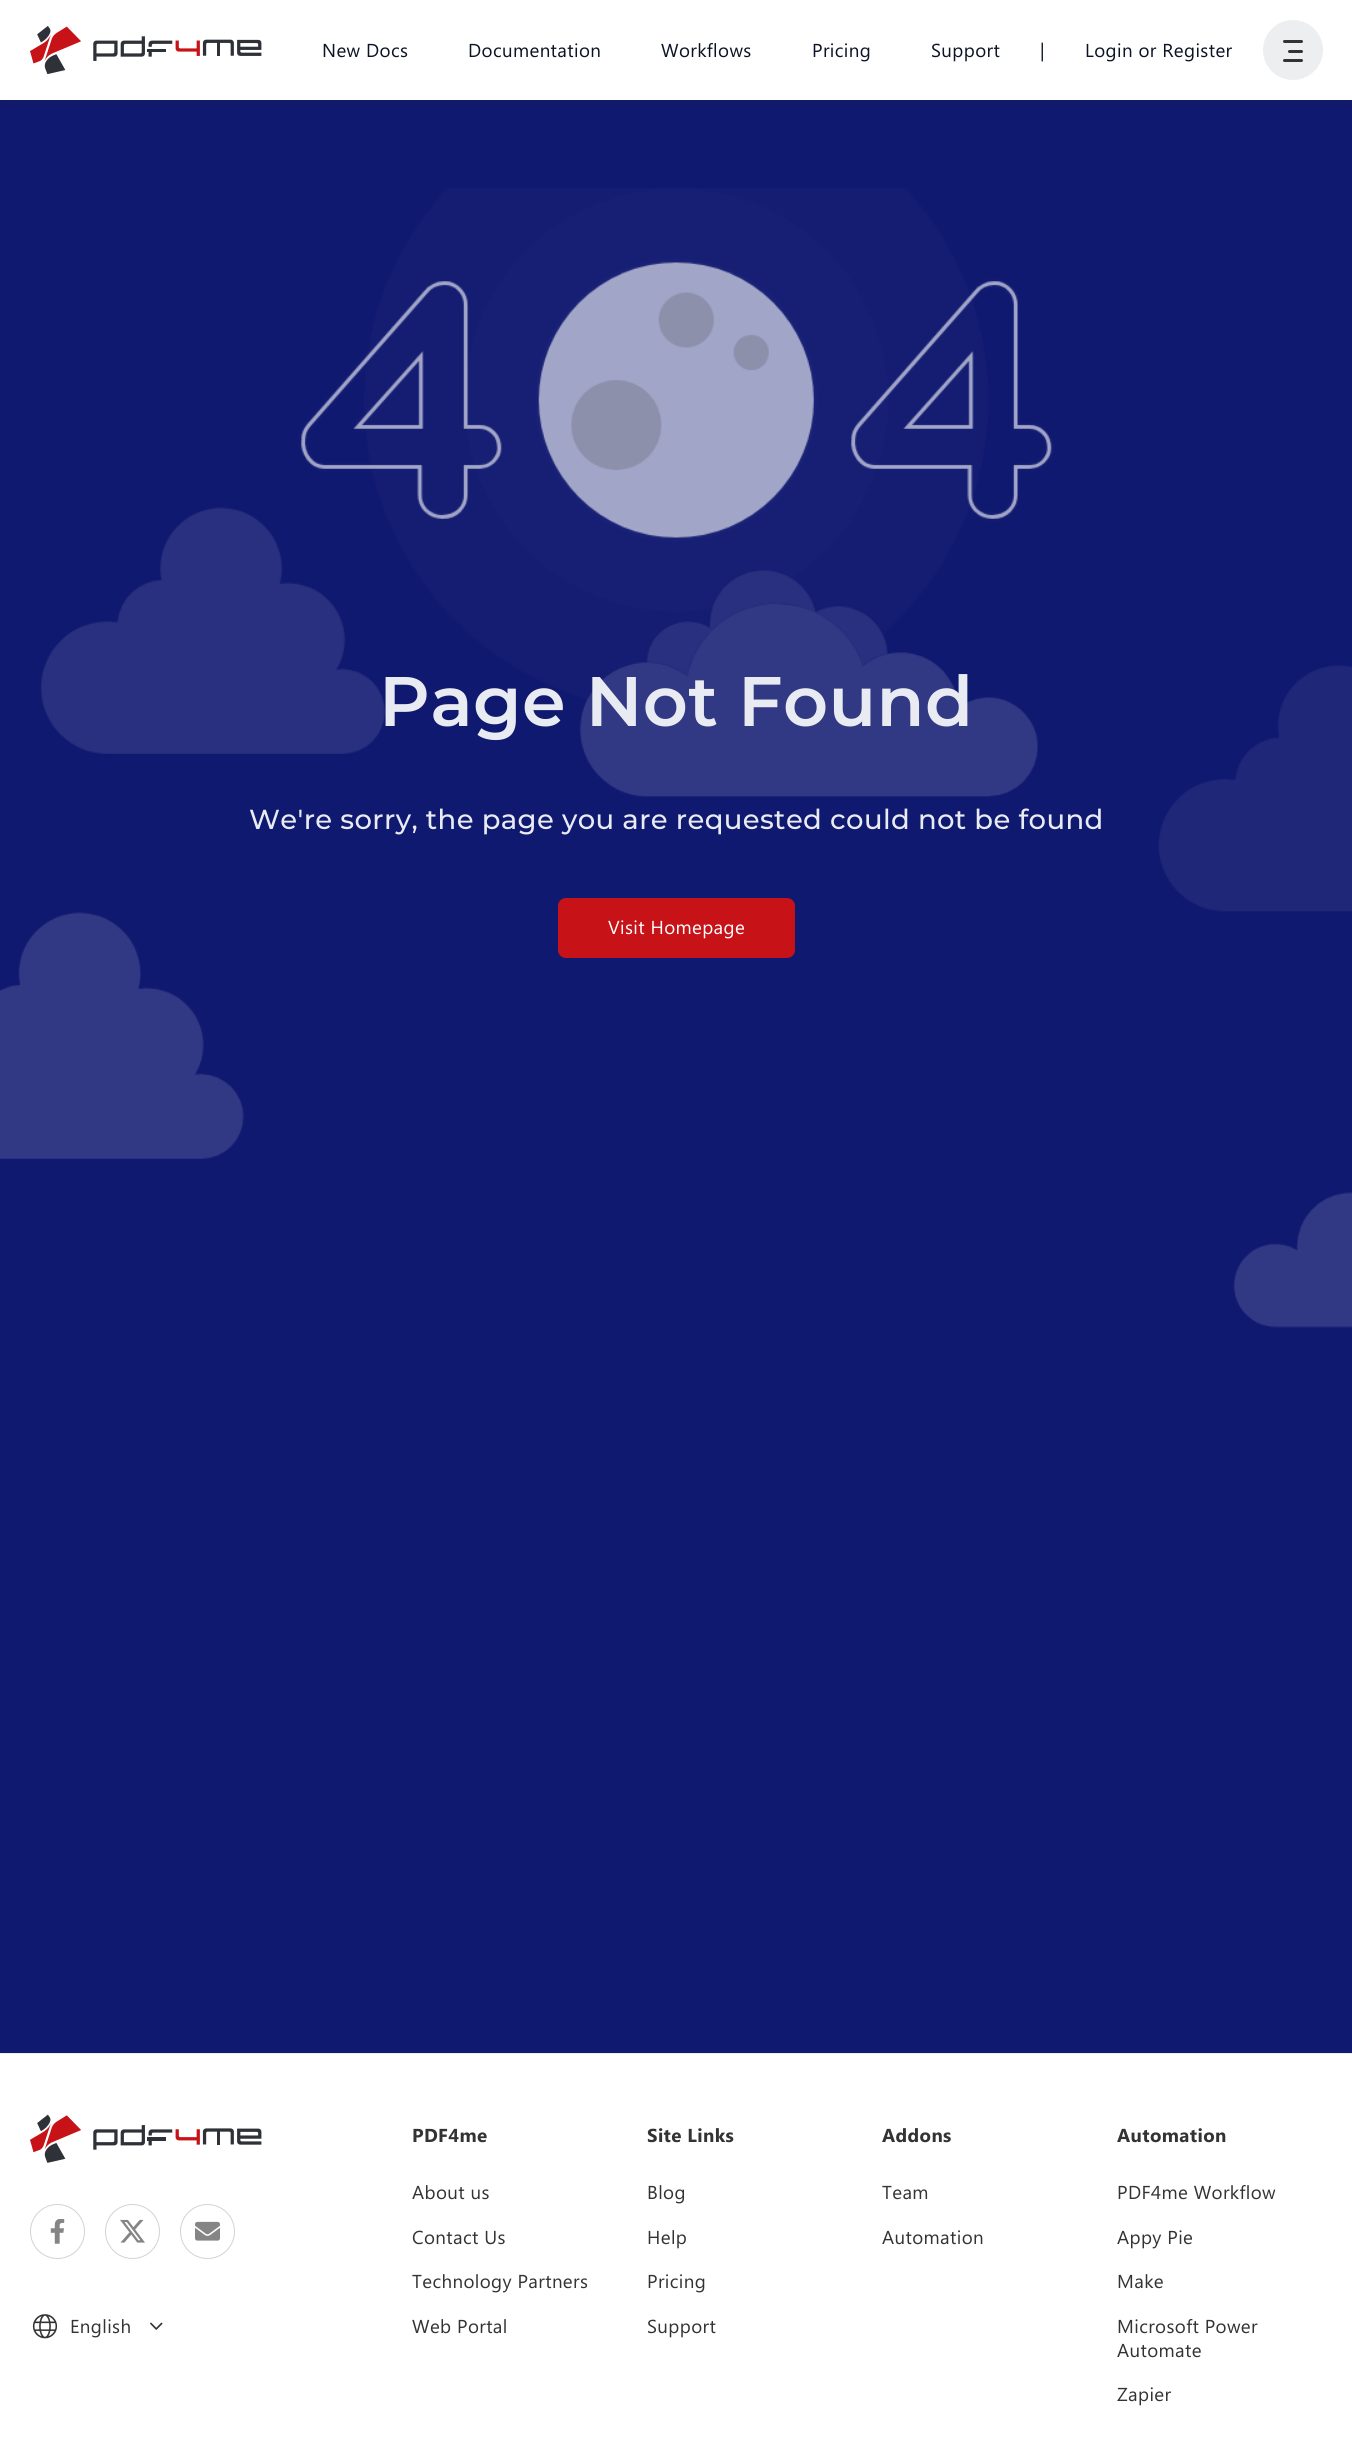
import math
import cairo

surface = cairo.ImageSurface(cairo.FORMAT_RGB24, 1352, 2441)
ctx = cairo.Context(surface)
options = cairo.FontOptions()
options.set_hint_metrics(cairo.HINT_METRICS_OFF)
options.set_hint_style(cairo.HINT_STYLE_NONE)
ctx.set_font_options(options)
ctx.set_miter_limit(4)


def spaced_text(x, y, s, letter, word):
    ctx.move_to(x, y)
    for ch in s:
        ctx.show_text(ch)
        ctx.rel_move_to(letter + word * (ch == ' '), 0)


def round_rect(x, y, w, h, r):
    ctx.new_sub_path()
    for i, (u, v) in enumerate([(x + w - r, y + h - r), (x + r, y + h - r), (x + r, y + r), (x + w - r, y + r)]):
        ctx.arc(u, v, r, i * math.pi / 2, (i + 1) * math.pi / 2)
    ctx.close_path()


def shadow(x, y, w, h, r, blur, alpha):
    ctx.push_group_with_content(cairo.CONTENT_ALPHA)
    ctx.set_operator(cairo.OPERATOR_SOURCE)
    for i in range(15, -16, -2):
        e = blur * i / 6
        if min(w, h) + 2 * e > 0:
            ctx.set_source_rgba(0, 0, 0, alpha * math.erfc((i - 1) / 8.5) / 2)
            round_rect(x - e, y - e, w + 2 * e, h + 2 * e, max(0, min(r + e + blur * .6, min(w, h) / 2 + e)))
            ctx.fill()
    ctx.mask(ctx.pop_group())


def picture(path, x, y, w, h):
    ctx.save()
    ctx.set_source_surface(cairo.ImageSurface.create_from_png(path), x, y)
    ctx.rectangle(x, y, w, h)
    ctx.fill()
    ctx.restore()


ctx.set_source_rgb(1, 1, 1)
ctx.paint()
ctx.set_source_rgb(0.063, 0.098, 0.439)
ctx.rectangle(0, 100, 1352, 1953)
ctx.fill()
ctx.save()
ctx.rectangle(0, 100, 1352, 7)
ctx.clip()
ctx.set_source_rgb(0.086, 0.129, 0.224)
shadow(0, 4, 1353, 100, 0, 2.5, 0.24)
ctx.restore()
picture("img1.png", 30, 26, 232, 49)
ctx.select_font_face("Segoe UI")
ctx.set_font_size(18.75)
ctx.set_source_rgb(0.043, 0.075, 0.141)
spaced_text(322, 57, "New Docs", 0.38, 0)
spaced_text(468, 57, "Documentation", 0.38, 0)
spaced_text(661, 57, "Workflows", 0.38, 0)
spaced_text(812, 57, "Pricing", 0.38, 0)
spaced_text(931, 57, "Support", 0.38, 0)
spaced_text(1040, 57, "|", 0.38, 0)
spaced_text(1085, 57, "Login or Register", 0.38, 0)
ctx.set_source_rgb(0.929, 0.933, 0.937)
ctx.new_path()
ctx.arc(1293, 50, 30, 0, 2 * math.pi)
ctx.fill()
ctx.set_source_rgb(0.2, 0.2, 0.2)
round_rect(1283, 40, 20, 3, 1.5)
ctx.fill()
round_rect(1288, 50, 15, 3, 1.5)
ctx.fill()
round_rect(1283, 59, 20, 3, 1.5)
ctx.fill()
picture("img2.png", 0, 188, 1352, 1140)
ctx.select_font_face("Montserrat SemiBold")
ctx.set_font_size(70)
ctx.set_source_rgb(0.914, 0.918, 0.949)
spaced_text(379, 726, "Page Not Found", 0.38, 0)
ctx.select_font_face("Montserrat Medium")
ctx.set_font_size(27.5)
spaced_text(249, 829, "We're sorry, the page you are requested could not be found", 0.38, 0)
ctx.set_source_rgb(0.78, 0.071, 0.09)
round_rect(558, 898, 237, 60, 8)
ctx.fill()
ctx.select_font_face("Segoe UI")
ctx.set_font_size(18.75)
ctx.set_source_rgb(1, 1, 1)
spaced_text(608, 934, "Visit Homepage", 0.38, 0)
ctx.set_source_rgb(0.929, 0.933, 0.937)
ctx.rectangle(0, 2053, 1352, 1)
ctx.fill()
picture("img3.png", 30, 2114, 232, 49)
ctx.arc(57.5, 2231.5, 27, 0, 2 * math.pi)
ctx.set_source_rgb(0.816, 0.827, 0.843)
ctx.set_line_width(1)
ctx.stroke()
picture("img4.png", 50, 2219, 15, 25)
ctx.arc(132.5, 2231.5, 27, 0, 2 * math.pi)
ctx.stroke()
picture("img5.png", 120, 2219, 25, 24)
ctx.arc(207.5, 2231.5, 27, 0, 2 * math.pi)
ctx.stroke()
picture("img6.png", 195, 2221, 25, 20)
picture("img7.png", 32, 2314, 26, 25)
ctx.set_source_rgb(0.2, 0.2, 0.2)
spaced_text(70, 2333, "English", 0.38, 0)
picture("img8.png", 150, 2322, 13, 8)
ctx.select_font_face("Segoe UI", cairo.FONT_SLANT_NORMAL, cairo.FONT_WEIGHT_BOLD)
spaced_text(412, 2142, "PDF4me", 0.38, 0)
ctx.select_font_face("Segoe UI")
spaced_text(412, 2199, "About us", 0.38, 0)
spaced_text(412, 2244, "Contact Us", 0.38, 0)
spaced_text(412, 2288, "Technology Partners", 0.38, 0)
spaced_text(412, 2333, "Web Portal", 0.38, 0)
ctx.select_font_face("Segoe UI", cairo.FONT_SLANT_NORMAL, cairo.FONT_WEIGHT_BOLD)
spaced_text(647, 2142, "Site Links", 0.38, 0)
ctx.select_font_face("Segoe UI")
spaced_text(647, 2199, "Blog", 0.38, 0)
spaced_text(647, 2244, "Help", 0.38, 0)
spaced_text(647, 2288, "Pricing", 0.38, 0)
spaced_text(647, 2333, "Support", 0.38, 0)
ctx.select_font_face("Segoe UI", cairo.FONT_SLANT_NORMAL, cairo.FONT_WEIGHT_BOLD)
spaced_text(882, 2142, "Addons", 0.38, 0)
ctx.select_font_face("Segoe UI")
spaced_text(882, 2199, "Team", 0.38, 0)
spaced_text(882, 2244, "Automation", 0.38, 0)
ctx.select_font_face("Segoe UI", cairo.FONT_SLANT_NORMAL, cairo.FONT_WEIGHT_BOLD)
spaced_text(1117, 2142, "Automation", 0.38, 0)
ctx.select_font_face("Segoe UI")
spaced_text(1117, 2199, "PDF4me Workflow", 0.38, 0)
spaced_text(1117, 2244, "Appy Pie", 0.38, 0)
spaced_text(1117, 2288, "Make", 0.38, 0)
spaced_text(1117, 2333, "Microsoft Power", 0.38, 0)
spaced_text(1117, 2357, "Automate", 0.38, 0)
spaced_text(1117, 2401, "Zapier", 0.38, 0)
surface.write_to_png("page.png")
